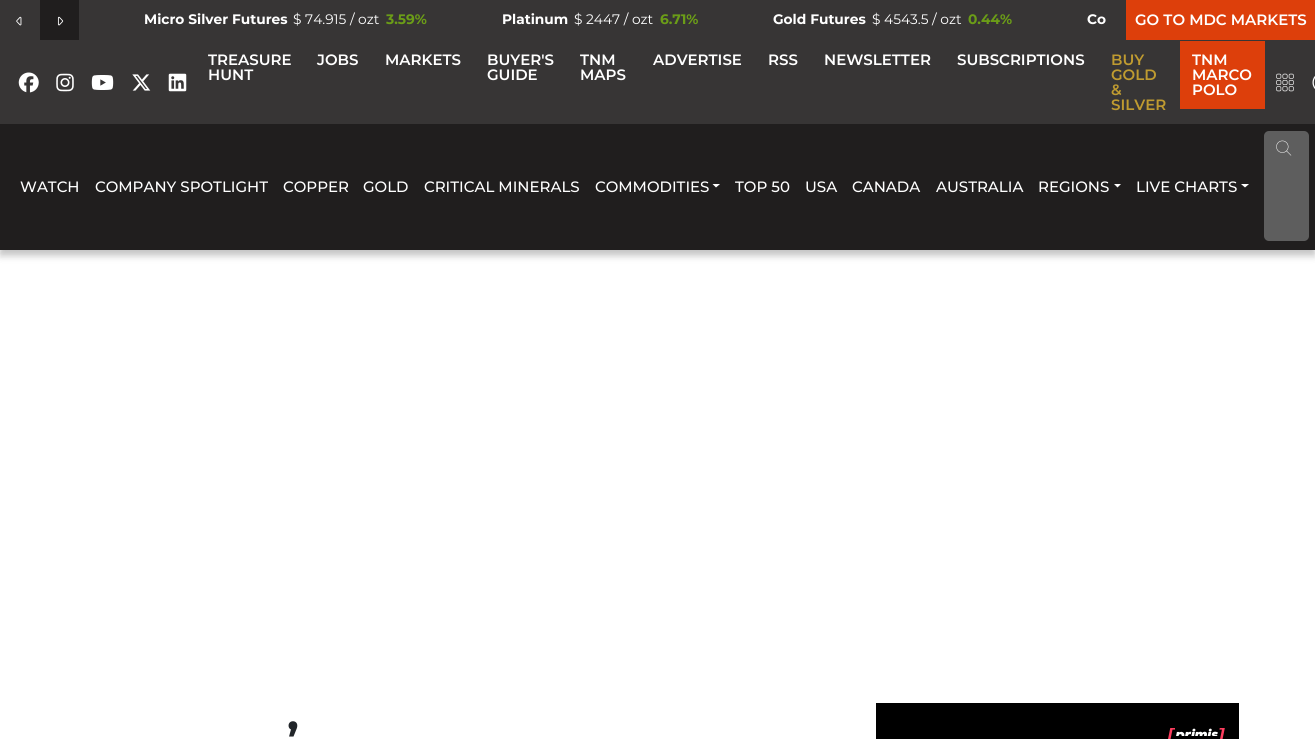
import math
import cairo

surface = cairo.ImageSurface(cairo.FORMAT_RGB24, 1315, 739)
ctx = cairo.Context(surface)
options = cairo.FontOptions()
options.set_hint_metrics(cairo.HINT_METRICS_OFF)
options.set_hint_style(cairo.HINT_STYLE_NONE)
ctx.set_font_options(options)
ctx.set_miter_limit(4)


def round_rect(x, y, w, h, r):
    ctx.new_sub_path()
    for i, (u, v) in enumerate([(x + w - r, y + h - r), (x + r, y + h - r), (x + r, y + r), (x + w - r, y + r)]):
        ctx.arc(u, v, r, i * math.pi / 2, (i + 1) * math.pi / 2)
    ctx.close_path()


def shadow(x, y, w, h, r, blur, alpha):
    ctx.push_group_with_content(cairo.CONTENT_ALPHA)
    ctx.set_operator(cairo.OPERATOR_SOURCE)
    for i in range(15, -16, -2):
        e = blur * i / 6
        if min(w, h) + 2 * e > 0:
            ctx.set_source_rgba(0, 0, 0, alpha * math.erfc((i - 1) / 8.5) / 2)
            round_rect(x - e, y - e, w + 2 * e, h + 2 * e, max(0, min(r + e + blur * .6, min(w, h) / 2 + e)))
            ctx.fill()
    ctx.mask(ctx.pop_group())


def picture(path, x, y, w, h):
    ctx.save()
    ctx.set_source_surface(cairo.ImageSurface.create_from_png(path), x, y)
    ctx.rectangle(x, y, w, h)
    ctx.fill()
    ctx.restore()


ctx.set_source_rgb(1, 1, 1)
ctx.paint()
ctx.set_source_rgb(0.216, 0.208, 0.208)
ctx.rectangle(0, 0, 1315, 124)
ctx.fill()
picture("img1.png", 16, 16, 6, 10)
ctx.set_source_rgb(0.125, 0.118, 0.118)
ctx.rectangle(40, 0, 39, 40)
ctx.fill()
picture("img2.png", 57, 16, 7, 10)
ctx.select_font_face("Montserrat", cairo.FONT_SLANT_NORMAL, cairo.FONT_WEIGHT_BOLD)
ctx.set_font_size(13.75)
ctx.set_source_rgb(1, 1, 1)
ctx.move_to(144, 24)
ctx.show_text("Micro Silver Futures")
ctx.select_font_face("Montserrat")
ctx.move_to(293, 24)
ctx.show_text("$ 74.915 / ozt")
ctx.select_font_face("Montserrat", cairo.FONT_SLANT_NORMAL, cairo.FONT_WEIGHT_BOLD)
ctx.set_source_rgb(0.42, 0.616, 0.09)
ctx.move_to(386, 24)
ctx.show_text("3.59%")
ctx.set_source_rgb(1, 1, 1)
ctx.move_to(502, 24)
ctx.show_text("Platinum")
ctx.select_font_face("Montserrat")
ctx.move_to(574, 24)
ctx.show_text("$ 2447 / ozt")
ctx.select_font_face("Montserrat", cairo.FONT_SLANT_NORMAL, cairo.FONT_WEIGHT_BOLD)
ctx.set_source_rgb(0.42, 0.616, 0.09)
ctx.move_to(660, 24)
ctx.show_text("6.71%")
ctx.set_source_rgb(1, 1, 1)
ctx.move_to(773, 24)
ctx.show_text("Gold Futures")
ctx.select_font_face("Montserrat")
ctx.move_to(872, 24)
ctx.show_text("$ 4543.5 / ozt")
ctx.select_font_face("Montserrat", cairo.FONT_SLANT_NORMAL, cairo.FONT_WEIGHT_BOLD)
ctx.set_source_rgb(0.42, 0.616, 0.09)
ctx.move_to(968, 24)
ctx.show_text("0.44%")
ctx.set_source_rgb(1, 1, 1)
ctx.move_to(1087, 24)
ctx.show_text("Co")
ctx.set_source_rgb(0.867, 0.247, 0.043)
ctx.rectangle(1126, 0, 189, 40)
ctx.fill()
ctx.select_font_face("Montserrat SemiBold")
ctx.set_font_size(15)
ctx.set_source_rgb(1, 1, 1)
ctx.move_to(1135, 25)
ctx.show_text("GO TO MDC MARKETS")
picture("img3.png", 18, 72, 21, 21)
picture("img4.png", 56, 73, 18, 19)
picture("img5.png", 91, 75, 23, 15)
picture("img6.png", 132, 74, 19, 17)
picture("img7.png", 168, 73, 19, 19)
ctx.move_to(208, 65)
ctx.show_text("TREASURE")
ctx.move_to(208, 80)
ctx.show_text("HUNT")
ctx.move_to(317, 65)
ctx.show_text("JOBS")
ctx.move_to(385, 65)
ctx.show_text("MARKETS")
ctx.move_to(487, 65)
ctx.show_text("BUYER'S")
ctx.move_to(487, 80)
ctx.show_text("GUIDE")
ctx.move_to(580, 65)
ctx.show_text("TNM")
ctx.move_to(580, 80)
ctx.show_text("MAPS")
ctx.move_to(653, 65)
ctx.show_text("ADVERTISE")
ctx.move_to(768, 65)
ctx.show_text("RSS")
ctx.move_to(824, 65)
ctx.show_text("NEWSLETTER")
ctx.move_to(957, 65)
ctx.show_text("SUBSCRIPTIONS")
ctx.set_source_rgb(0.749, 0.608, 0.188)
ctx.move_to(1111, 65)
ctx.show_text("BUY")
ctx.move_to(1111, 80)
ctx.show_text("GOLD")
ctx.move_to(1111, 95)
ctx.show_text("&")
ctx.move_to(1111, 110)
ctx.show_text("SILVER")
ctx.set_source_rgb(0.867, 0.247, 0.043)
ctx.rectangle(1180, 41, 85, 68)
ctx.fill()
ctx.set_source_rgb(1, 1, 1)
ctx.move_to(1192, 65)
ctx.show_text("TNM")
ctx.move_to(1192, 80)
ctx.show_text("MARCO")
ctx.move_to(1192, 95)
ctx.show_text("POLO")
picture("img8.png", 1276, 73, 18, 19)
picture("img9.png", 1312, 76, 3, 13)
ctx.set_source_rgb(0, 0, 0)
shadow(0, 131, 1315, 127, 0, 3, 0.1)
shadow(0, 128, 1315, 126, 0, 3, 0.15)
ctx.set_source_rgb(0.125, 0.118, 0.118)
ctx.rectangle(0, 124, 1315, 126)
ctx.fill()
ctx.select_font_face("Montserrat Medium")
ctx.set_source_rgb(1, 1, 1)
ctx.move_to(20, 192)
ctx.show_text("WATCH")
ctx.move_to(95, 192)
ctx.show_text("COMPANY SPOTLIGHT")
ctx.move_to(283, 192)
ctx.show_text("COPPER")
ctx.move_to(363, 192)
ctx.show_text("GOLD")
ctx.move_to(424, 192)
ctx.show_text("CRITICAL MINERALS")
ctx.move_to(595, 192)
ctx.show_text("COMMODITIES")
ctx.new_path()
ctx.move_to(712.5, 184)
ctx.line_to(720, 184)
ctx.line_to(716, 187.5)
ctx.close_path()
ctx.fill()
ctx.move_to(735, 192)
ctx.show_text("TOP 50")
ctx.move_to(805, 192)
ctx.show_text("USA")
ctx.move_to(852, 192)
ctx.show_text("CANADA")
ctx.move_to(936, 192)
ctx.show_text("AUSTRALIA")
ctx.move_to(1038, 192)
ctx.show_text("REGIONS")
ctx.new_path()
ctx.move_to(1114, 184)
ctx.line_to(1121, 184)
ctx.line_to(1117.5, 187.5)
ctx.close_path()
ctx.fill()
ctx.move_to(1136, 192)
ctx.show_text("LIVE CHARTS")
ctx.new_path()
ctx.move_to(1241, 184)
ctx.line_to(1249, 184)
ctx.line_to(1245, 187.5)
ctx.close_path()
ctx.fill()
ctx.set_source_rgb(0.369, 0.369, 0.369)
round_rect(1264, 131, 45, 110, 5)
ctx.fill()
picture("img10.png", 1276, 140, 16, 16)
ctx.select_font_face("Montserrat", cairo.FONT_SLANT_NORMAL, cairo.FONT_WEIGHT_BOLD)
ctx.set_font_size(45)
ctx.set_source_rgb(0.129, 0.145, 0.161)
ctx.move_to(287, 755)
ctx.show_text("’")
ctx.set_source_rgb(0, 0, 0)
ctx.rectangle(876, 703, 363, 36)
ctx.fill()
picture("img11.png", 1168, 728, 7, 11)
picture("img12.png", 1176, 728, 42, 8)
picture("img13.png", 1219, 728, 6, 11)
surface.write_to_png("page.png")
